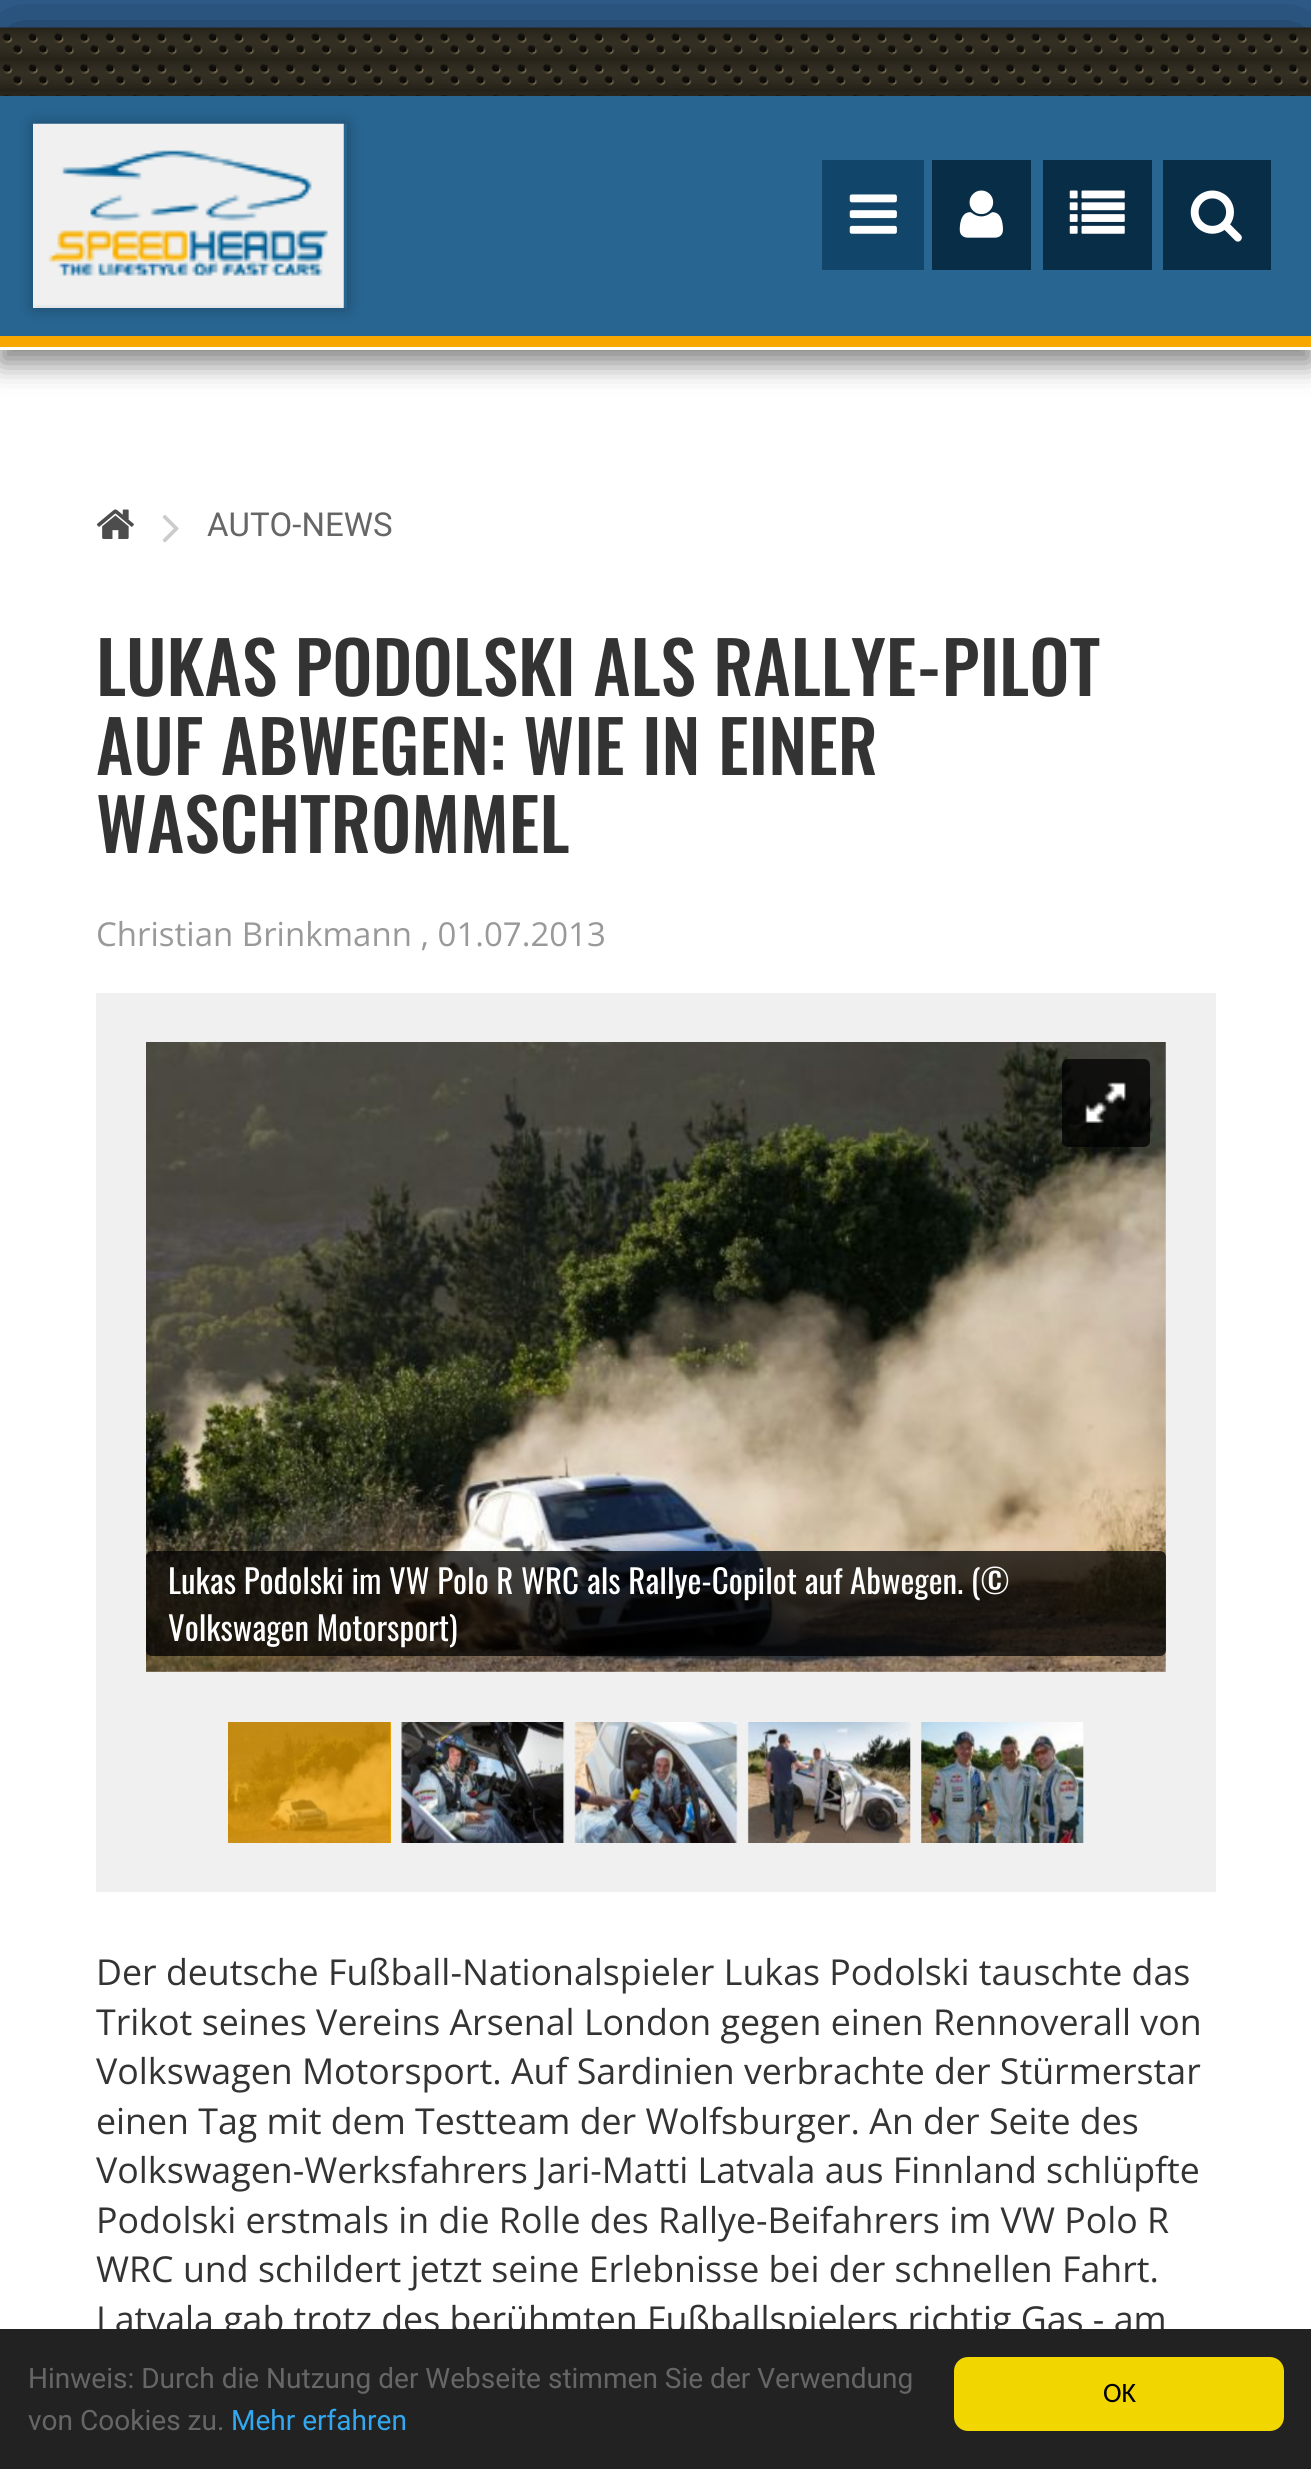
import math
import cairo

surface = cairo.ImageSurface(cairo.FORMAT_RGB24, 1311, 2469)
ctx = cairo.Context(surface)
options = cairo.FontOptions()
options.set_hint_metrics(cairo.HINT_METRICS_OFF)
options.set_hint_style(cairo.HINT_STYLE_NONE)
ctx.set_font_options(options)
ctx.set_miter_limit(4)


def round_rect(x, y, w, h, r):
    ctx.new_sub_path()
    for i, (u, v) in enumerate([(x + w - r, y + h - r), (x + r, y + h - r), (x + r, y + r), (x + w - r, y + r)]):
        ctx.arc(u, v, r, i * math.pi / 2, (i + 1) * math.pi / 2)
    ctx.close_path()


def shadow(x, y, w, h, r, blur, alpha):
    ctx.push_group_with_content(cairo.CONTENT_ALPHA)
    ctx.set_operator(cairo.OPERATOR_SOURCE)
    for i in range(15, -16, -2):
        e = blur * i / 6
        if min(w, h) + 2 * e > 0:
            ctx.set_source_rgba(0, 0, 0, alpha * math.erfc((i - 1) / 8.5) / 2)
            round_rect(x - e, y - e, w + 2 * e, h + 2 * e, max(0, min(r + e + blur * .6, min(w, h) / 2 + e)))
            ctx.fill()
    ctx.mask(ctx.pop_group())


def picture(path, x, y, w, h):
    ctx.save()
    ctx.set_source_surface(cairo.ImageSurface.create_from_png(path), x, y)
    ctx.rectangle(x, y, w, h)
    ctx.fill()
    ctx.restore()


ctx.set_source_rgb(0.2, 0.4, 0.6)
ctx.paint()
ctx.set_source_rgb(0, 0, 0)
shadow(0, 28, 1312, 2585, 0, 48, 0.5)
picture("img1.png", 0, 27, 1311, 69)
ctx.set_source_rgb(1, 1, 1)
ctx.rectangle(0, 350, 1311, 1979)
ctx.fill()
ctx.set_source_rgb(0, 0, 0)
shadow(0, 110, 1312, 253, 0, 14, 0.5)
ctx.set_source_rgb(0.157, 0.396, 0.569)
ctx.rectangle(0, 96, 1311, 240)
ctx.fill()
ctx.set_source_rgb(0.969, 0.655, 0)
ctx.rectangle(0, 336, 1311, 11)
ctx.fill()
ctx.save()
ctx.set_fill_rule(cairo.FILL_RULE_EVEN_ODD)
ctx.new_path()
ctx.move_to(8, 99)
ctx.line_to(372, 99)
ctx.line_to(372, 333)
ctx.line_to(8, 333)
ctx.close_path()
ctx.move_to(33, 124)
ctx.line_to(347, 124)
ctx.line_to(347, 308)
ctx.line_to(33, 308)
ctx.close_path()
ctx.clip()
ctx.set_source_rgb(0, 0, 0)
shadow(33, 124, 314, 184, 0, 8, 0.29)
ctx.restore()
picture("img2.png", 33, 123, 311, 185)
ctx.set_source_rgb(0.071, 0.271, 0.416)
ctx.rectangle(822, 160, 102, 110)
ctx.fill()
picture("img3.png", 849, 194, 48, 40)
ctx.set_source_rgb(0.035, 0.176, 0.278)
ctx.rectangle(932, 160, 99, 110)
ctx.fill()
picture("img4.png", 959, 190, 44, 48)
ctx.rectangle(1043, 160, 109, 110)
ctx.fill()
picture("img5.png", 1069, 190, 56, 44)
ctx.rectangle(1163, 160, 108, 110)
ctx.fill()
picture("img6.png", 1190, 190, 52, 52)
ctx.set_source_rgb(1, 1, 1)
ctx.rectangle(0, 347, 1311, 3)
ctx.fill()
picture("img7.png", 96, 509, 38, 30)
picture("img8.png", 162, 515, 17, 28)
ctx.select_font_face("Roboto")
ctx.set_font_size(33)
ctx.set_source_rgb(0.4, 0.4, 0.4)
ctx.move_to(207, 536)
ctx.show_text("AUTO-NEWS")
ctx.select_font_face("Oswald Medium")
ctx.set_font_size(71.5)
ctx.set_source_rgb(0.2, 0.2, 0.2)
ctx.move_to(96, 696)
ctx.show_text("LUKAS PODOLSKI ALS RALLYE-PILOT")
ctx.move_to(96, 775)
ctx.show_text("AUF ABWEGEN: WIE IN EINER")
ctx.move_to(96, 853)
ctx.show_text("WASCHTROMMEL")
ctx.select_font_face("Open Sans")
ctx.set_font_size(33)
ctx.set_source_rgb(0.6, 0.6, 0.6)
ctx.move_to(96, 946)
ctx.show_text("Christian Brinkmann , 01.07.2013")
ctx.set_source_rgb(0.941, 0.941, 0.941)
ctx.rectangle(96, 993, 1120, 899)
ctx.fill()
picture("img9.png", 146, 1042, 1020, 630)
ctx.set_source_rgba(0, 0, 0, 0.75)
round_rect(1062, 1059, 88, 88, 6)
ctx.fill()
picture("img10.png", 1085, 1082, 41, 41)
round_rect(146, 1551, 1020, 105, 6)
ctx.fill()
ctx.select_font_face("Oswald")
ctx.set_source_rgb(1, 1, 1)
ctx.move_to(168, 1594)
ctx.show_text("Lukas Podolski im VW Polo R WRC als Rallye-Copilot auf Abwegen. (©")
ctx.move_to(168, 1641)
ctx.show_text("Volkswagen Motorsport)")
ctx.set_source_rgb(0.969, 0.655, 0)
ctx.rectangle(228, 1722, 163, 121)
ctx.fill()
picture("img11.png", 228, 1722, 163, 121)
picture("img12.png", 401, 1722, 164, 121)
picture("img13.png", 574, 1722, 164, 121)
picture("img14.png", 747, 1722, 164, 121)
picture("img15.png", 921, 1722, 163, 121)
ctx.select_font_face("Open Sans")
ctx.set_font_size(35.75)
ctx.set_source_rgb(0.2, 0.2, 0.2)
ctx.move_to(96, 1985)
ctx.show_text("Der deutsche Fußball-Nationalspieler Lukas Podolski tauschte das")
ctx.move_to(96, 2035)
ctx.show_text("Trikot seines Vereins Arsenal London gegen einen Rennoverall von")
ctx.move_to(96, 2084)
ctx.show_text("Volkswagen Motorsport. Auf Sardinien verbrachte der Stürmerstar")
ctx.move_to(96, 2134)
ctx.show_text("einen Tag mit dem Testteam der Wolfsburger. An der Seite des")
ctx.move_to(96, 2183)
ctx.show_text("Volkswagen-Werksfahrers Jari-Matti Latvala aus Finnland schlüpfte")
ctx.move_to(96, 2233)
ctx.show_text("Podolski erstmals in die Rolle des Rallye-Beifahrers im VW Polo R")
ctx.move_to(96, 2282)
ctx.show_text("WRC und schildert jetzt seine Erlebnisse bei der schnellen Fahrt.")
ctx.move_to(96, 2332)
ctx.show_text("Latvala gab trotz des berühmten Fußballspielers richtig Gas - am")
ctx.set_source_rgb(0.133, 0.133, 0.133)
ctx.rectangle(0, 2329, 1311, 140)
ctx.fill()
ctx.select_font_face("Roboto")
ctx.set_font_size(28.05)
ctx.set_source_rgb(0.4, 0.4, 0.4)
ctx.move_to(28, 2388)
ctx.show_text("Hinweis: Durch die Nutzung der Webseite stimmen Sie der Verwendung")
ctx.move_to(28, 2430)
ctx.show_text("von Cookies zu.")
ctx.set_source_rgb(0.192, 0.659, 0.941)
ctx.move_to(231, 2430)
ctx.show_text("Mehr erfahren")
ctx.set_source_rgb(0.945, 0.839, 0)
round_rect(954, 2357, 330, 74, 14)
ctx.fill()
ctx.select_font_face("Carlito")
ctx.set_source_rgb(0, 0, 0)
ctx.move_to(1103, 2402)
ctx.show_text("OK")
surface.write_to_png("page.png")
